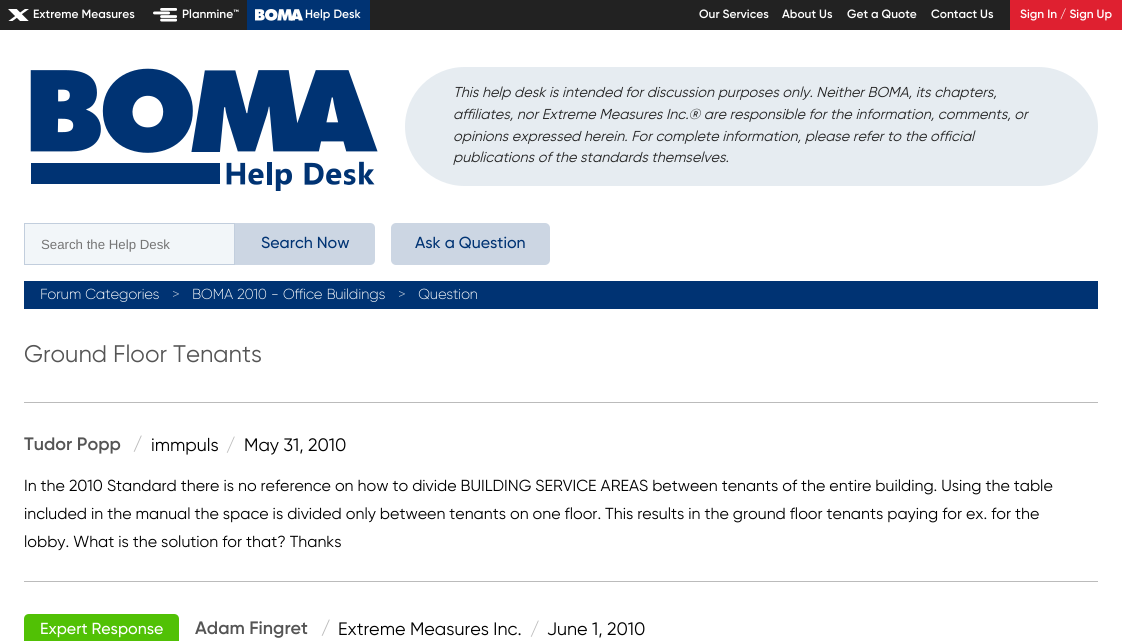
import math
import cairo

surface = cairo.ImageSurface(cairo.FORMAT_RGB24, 1122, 641)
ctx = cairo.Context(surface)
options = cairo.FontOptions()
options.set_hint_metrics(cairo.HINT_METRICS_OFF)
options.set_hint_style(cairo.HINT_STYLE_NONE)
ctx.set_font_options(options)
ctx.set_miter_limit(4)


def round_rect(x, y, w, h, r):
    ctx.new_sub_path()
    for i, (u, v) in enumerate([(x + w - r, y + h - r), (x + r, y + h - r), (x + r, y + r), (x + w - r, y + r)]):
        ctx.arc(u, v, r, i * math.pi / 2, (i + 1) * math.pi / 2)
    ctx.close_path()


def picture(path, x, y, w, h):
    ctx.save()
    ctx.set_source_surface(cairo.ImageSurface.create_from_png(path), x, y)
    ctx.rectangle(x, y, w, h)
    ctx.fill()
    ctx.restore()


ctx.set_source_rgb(1, 1, 1)
ctx.paint()
ctx.set_source_rgb(0.133, 0.133, 0.133)
ctx.rectangle(0, 0, 247, 30)
ctx.fill()
picture("img1.png", 8, 9, 21, 12)
ctx.select_font_face("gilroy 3")
ctx.set_font_size(12)
ctx.set_source_rgb(1, 1, 1)
ctx.move_to(33, 18)
ctx.show_text("Extreme Measures")
picture("img2.png", 153, 8, 24, 14)
ctx.move_to(182, 18)
ctx.show_text("Planmine™")
ctx.set_source_rgb(0, 0.2, 0.451)
ctx.rectangle(247, 0, 123, 30)
ctx.fill()
picture("img3.png", 255, 9, 48, 12)
ctx.set_source_rgb(1, 1, 1)
ctx.move_to(305, 18)
ctx.show_text("Help Desk")
ctx.set_source_rgb(0.133, 0.133, 0.133)
ctx.rectangle(370, 0, 640, 30)
ctx.fill()
ctx.set_source_rgb(1, 1, 1)
ctx.move_to(699, 18)
ctx.show_text("Our Services")
ctx.move_to(782, 18)
ctx.show_text("About Us")
ctx.move_to(847, 18)
ctx.show_text("Get a Quote")
ctx.move_to(931, 18)
ctx.show_text("Contact Us")
ctx.set_source_rgb(0.875, 0.125, 0.188)
ctx.rectangle(1010, 0, 112, 30)
ctx.fill()
ctx.set_source_rgb(1, 1, 1)
ctx.move_to(1020, 18)
ctx.show_text("Sign In / Sign Up")
picture("img4.png", 30, 68, 348, 123)
ctx.set_source_rgb(0.902, 0.922, 0.945)
round_rect(405, 67, 693, 119, 59.5)
ctx.fill()
ctx.select_font_face("gilroy", cairo.FONT_SLANT_ITALIC)
ctx.set_font_size(14.4)
ctx.set_source_rgb(0.133, 0.133, 0.133)
ctx.move_to(453, 97)
ctx.show_text("This help desk is intended for discussion purposes only. Neither BOMA, its chapters,")
ctx.move_to(453, 119)
ctx.show_text("affiliates, nor Extreme Measures Inc.® are responsible for the information, comments, or")
ctx.move_to(453, 141)
ctx.show_text("opinions expressed herein. For complete information, please refer to the official")
ctx.move_to(453, 162)
ctx.show_text("publications of the standards themselves.")
ctx.set_source_rgb(0.949, 0.961, 0.973)
ctx.rectangle(24.5, 223.5, 210, 41)
ctx.fill_preserve()
ctx.set_source_rgb(0.761, 0.808, 0.867)
ctx.set_line_width(1)
ctx.stroke()
ctx.select_font_face("Liberation Sans")
ctx.set_font_size(13.25)
ctx.set_source_rgb(0.459, 0.459, 0.459)
ctx.move_to(41, 249)
ctx.show_text("Search the Help Desk")
ctx.set_source_rgb(0.8, 0.839, 0.89)
ctx.new_path()
ctx.move_to(235, 223)
ctx.line_to(370, 223)
ctx.curve_to(373, 223, 375, 225, 375, 228)
ctx.line_to(375, 260)
ctx.curve_to(375, 263, 373, 265, 370, 265)
ctx.line_to(235, 265)
ctx.close_path()
ctx.fill()
ctx.select_font_face("gilroy")
ctx.set_font_size(16)
ctx.set_source_rgb(0, 0.2, 0.451)
ctx.move_to(261, 248)
ctx.show_text("Search Now")
ctx.set_source_rgb(0.8, 0.839, 0.89)
round_rect(391, 223, 159, 42, 5)
ctx.fill()
ctx.set_source_rgb(0, 0.2, 0.451)
ctx.move_to(415, 248)
ctx.show_text("Ask a Question")
ctx.rectangle(24, 281, 1074, 28)
ctx.fill()
ctx.select_font_face("gilroy", cairo.FONT_SLANT_NORMAL, cairo.FONT_WEIGHT_BOLD)
ctx.set_font_size(14)
ctx.set_source_rgb(1, 1, 1)
ctx.move_to(40, 299)
ctx.show_text("Forum Categories")
ctx.set_source_rgb(0.702, 0.761, 0.835)
ctx.move_to(172, 299)
ctx.show_text(">")
ctx.set_source_rgb(1, 1, 1)
ctx.move_to(192, 299)
ctx.show_text("BOMA 2010 - Office Buildings")
ctx.set_source_rgb(0.702, 0.761, 0.835)
ctx.move_to(398, 299)
ctx.show_text(">")
ctx.set_source_rgb(1, 1, 1)
ctx.move_to(418, 299)
ctx.show_text("Question")
ctx.set_source_rgb(0.733, 0.733, 0.733)
ctx.rectangle(24, 402, 1074, 1)
ctx.fill()
ctx.select_font_face("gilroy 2")
ctx.set_font_size(24)
ctx.set_source_rgb(0.333, 0.333, 0.333)
ctx.move_to(24, 362)
ctx.show_text("Ground Floor Tenants")
ctx.set_source_rgb(0.733, 0.733, 0.733)
ctx.rectangle(24, 581, 1074, 1)
ctx.fill()
ctx.select_font_face("gilroy 3")
ctx.set_font_size(18)
ctx.set_source_rgb(0.333, 0.333, 0.333)
ctx.move_to(24, 450)
ctx.show_text("Tudor Popp")
ctx.set_source_rgb(0.733, 0.733, 0.733)
ctx.move_to(133, 450)
ctx.show_text("/")
ctx.select_font_face("gilroy 2")
ctx.set_source_rgb(0, 0, 0)
ctx.move_to(151, 451)
ctx.show_text("immpuls")
ctx.set_source_rgb(0.733, 0.733, 0.733)
ctx.move_to(226, 451)
ctx.show_text("/")
ctx.set_source_rgb(0, 0, 0)
ctx.move_to(244, 451)
ctx.show_text("May 31, 2010")
ctx.set_font_size(16)
ctx.move_to(24, 491)
ctx.show_text("In the 2010 Standard there is no reference on how to divide BUILDING SERVICE AREAS between tenants of the entire building. Using the table")
ctx.move_to(24, 519)
ctx.show_text("included in the manual the space is divided only between tenants on one floor. This results in the ground floor tenants paying for ex. for the")
ctx.move_to(24, 547)
ctx.show_text("lobby. What is the solution for that? Thanks")
ctx.set_source_rgb(0.318, 0.757, 0.02)
ctx.new_path()
ctx.move_to(29, 614)
ctx.line_to(174, 614)
ctx.curve_to(177, 614, 179, 616, 179, 619)
ctx.line_to(179, 641)
ctx.line_to(24, 641)
ctx.line_to(24, 619)
ctx.curve_to(24, 616, 26, 614, 29, 614)
ctx.close_path()
ctx.fill()
ctx.select_font_face("gilroy")
ctx.set_source_rgb(1, 1, 1)
ctx.move_to(40, 634)
ctx.show_text("Expert Response")
ctx.select_font_face("gilroy 3")
ctx.set_font_size(18)
ctx.set_source_rgb(0.333, 0.333, 0.333)
ctx.move_to(195, 634)
ctx.show_text("Adam Fingret")
ctx.set_source_rgb(0.733, 0.733, 0.733)
ctx.move_to(321, 634)
ctx.show_text("/")
ctx.select_font_face("gilroy 2")
ctx.set_source_rgb(0, 0, 0)
ctx.move_to(338, 635)
ctx.show_text("Extreme Measures Inc.")
ctx.set_source_rgb(0.733, 0.733, 0.733)
ctx.move_to(530, 635)
ctx.show_text("/")
ctx.set_source_rgb(0, 0, 0)
ctx.move_to(547, 635)
ctx.show_text("June 1, 2010")
surface.write_to_png("page.png")
